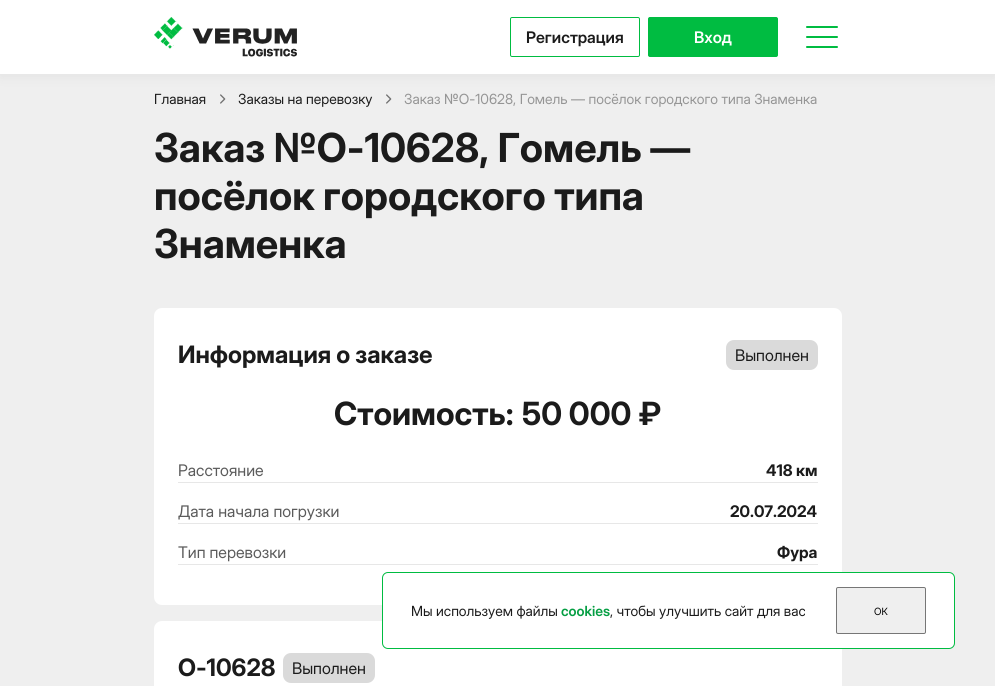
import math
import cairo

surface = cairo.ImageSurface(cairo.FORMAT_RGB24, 995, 686)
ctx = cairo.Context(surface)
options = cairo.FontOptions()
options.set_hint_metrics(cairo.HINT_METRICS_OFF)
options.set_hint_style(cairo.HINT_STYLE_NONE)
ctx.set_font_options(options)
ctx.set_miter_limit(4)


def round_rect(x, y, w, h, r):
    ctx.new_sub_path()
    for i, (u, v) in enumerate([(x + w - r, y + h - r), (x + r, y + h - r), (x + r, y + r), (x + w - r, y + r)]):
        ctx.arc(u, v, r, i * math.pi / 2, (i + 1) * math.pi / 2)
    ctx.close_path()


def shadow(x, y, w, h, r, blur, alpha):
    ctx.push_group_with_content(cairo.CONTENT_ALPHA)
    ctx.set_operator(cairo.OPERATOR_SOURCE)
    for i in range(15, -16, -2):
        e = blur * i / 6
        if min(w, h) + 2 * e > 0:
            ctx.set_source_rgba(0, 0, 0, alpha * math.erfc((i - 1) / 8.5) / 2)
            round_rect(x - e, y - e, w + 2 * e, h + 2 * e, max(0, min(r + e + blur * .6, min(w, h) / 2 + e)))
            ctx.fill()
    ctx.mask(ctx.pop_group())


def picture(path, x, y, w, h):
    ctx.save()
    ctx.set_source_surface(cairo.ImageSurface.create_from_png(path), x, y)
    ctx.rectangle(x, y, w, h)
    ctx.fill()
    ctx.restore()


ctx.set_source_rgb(0.937, 0.937, 0.937)
ctx.paint()
picture("img2.png", 220, 94, 6, 10)
picture("img2.png", 386, 94, 6, 10)
ctx.set_source_rgb(0, 0, 0)
shadow(0, 2, 995, 74, 0, 7, 0.06)
ctx.set_source_rgb(1, 1, 1)
ctx.rectangle(0, 0, 995, 74)
ctx.fill()
picture("img1.png", 154, 17, 143, 40)
round_rect(510.5, 17.5, 129, 39, 1.5)
ctx.set_source_rgb(0, 0.737, 0.255)
ctx.set_line_width(1)
ctx.stroke()
ctx.select_font_face("Inter Display SemiBold")
ctx.set_font_size(16)
ctx.set_source_rgb(0.106, 0.106, 0.106)
ctx.move_to(526, 43)
ctx.show_text("Регистрация")
ctx.set_source_rgb(0, 0.737, 0.255)
round_rect(648.5, 17.5, 129, 39, 1.5)
ctx.fill_preserve()
ctx.stroke()
ctx.set_source_rgb(1, 1, 1)
ctx.move_to(694, 43)
ctx.show_text("Вход")
ctx.new_path()
ctx.move_to(807, 27)
ctx.line_to(837, 27)
ctx.move_to(807, 37)
ctx.line_to(837, 37)
ctx.move_to(807, 47)
ctx.line_to(837, 47)
ctx.set_source_rgb(0, 0.737, 0.255)
ctx.set_line_width(2)
ctx.set_line_cap(cairo.LINE_CAP_ROUND)
ctx.set_line_join(cairo.LINE_JOIN_ROUND)
ctx.stroke()
ctx.select_font_face("Inter Display")
ctx.set_font_size(14)
ctx.set_source_rgb(0.106, 0.106, 0.106)
ctx.move_to(154, 104)
ctx.show_text("Главная")
ctx.move_to(238, 104)
ctx.show_text("Заказы на перевозку")
ctx.set_source_rgb(0.584, 0.584, 0.584)
ctx.move_to(404, 104)
ctx.show_text("Заказ №O-10628, Гомель — посёлок городского типа Знаменка")
ctx.select_font_face("Inter Display", cairo.FONT_SLANT_NORMAL, cairo.FONT_WEIGHT_BOLD)
ctx.set_font_size(40)
ctx.set_source_rgb(0.106, 0.106, 0.106)
ctx.move_to(154, 162)
ctx.show_text("Заказ №O-10628, Гомель —")
ctx.move_to(154, 210)
ctx.show_text("посёлок городского типа")
ctx.move_to(154, 258)
ctx.show_text("Знаменка")
ctx.set_source_rgb(1, 1, 1)
round_rect(154, 308, 688, 297, 8)
ctx.fill()
ctx.set_font_size(24)
ctx.set_source_rgb(0.106, 0.106, 0.106)
ctx.move_to(178, 363)
ctx.show_text("Информация о заказе")
ctx.set_source_rgb(0.855, 0.855, 0.855)
round_rect(726, 340, 92, 30, 8)
ctx.fill()
ctx.select_font_face("Inter Display")
ctx.set_font_size(16)
ctx.set_source_rgb(0.106, 0.106, 0.106)
ctx.move_to(735, 361)
ctx.show_text("Выполнен")
ctx.select_font_face("Inter Display", cairo.FONT_SLANT_NORMAL, cairo.FONT_WEIGHT_BOLD)
ctx.set_font_size(32)
ctx.move_to(334, 425)
ctx.show_text("Стоимость:")
ctx.move_to(522, 425)
ctx.show_text("50 000 ₽")
ctx.set_source_rgb(0.906, 0.906, 0.906)
ctx.rectangle(178, 482, 640, 1)
ctx.fill()
ctx.select_font_face("Inter Display")
ctx.set_font_size(16)
ctx.set_source_rgb(0.357, 0.357, 0.357)
ctx.move_to(178, 476)
ctx.show_text("Расстояние")
ctx.select_font_face("Inter Display", cairo.FONT_SLANT_NORMAL, cairo.FONT_WEIGHT_BOLD)
ctx.set_source_rgb(0.106, 0.106, 0.106)
ctx.move_to(766, 476)
ctx.show_text("418 км")
ctx.set_source_rgb(0.906, 0.906, 0.906)
ctx.rectangle(178, 523, 640, 1)
ctx.fill()
ctx.select_font_face("Inter Display")
ctx.set_source_rgb(0.357, 0.357, 0.357)
ctx.move_to(178, 517)
ctx.show_text("Дата начала погрузки")
ctx.select_font_face("Inter Display", cairo.FONT_SLANT_NORMAL, cairo.FONT_WEIGHT_BOLD)
ctx.set_source_rgb(0.106, 0.106, 0.106)
ctx.move_to(730, 517)
ctx.show_text("20.07.2024")
ctx.set_source_rgb(0.906, 0.906, 0.906)
ctx.rectangle(178, 564, 640, 1)
ctx.fill()
ctx.select_font_face("Inter Display")
ctx.set_source_rgb(0.357, 0.357, 0.357)
ctx.move_to(178, 558)
ctx.show_text("Тип перевозки")
ctx.select_font_face("Inter Display", cairo.FONT_SLANT_NORMAL, cairo.FONT_WEIGHT_BOLD)
ctx.set_source_rgb(0.106, 0.106, 0.106)
ctx.move_to(777, 558)
ctx.show_text("Фура")
ctx.set_source_rgb(1, 1, 1)
round_rect(154, 621, 688, 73, 8)
ctx.fill()
ctx.set_font_size(24)
ctx.set_source_rgb(0.106, 0.106, 0.106)
ctx.move_to(178, 676)
ctx.show_text("O-10628")
ctx.set_source_rgb(0.855, 0.855, 0.855)
round_rect(283, 653, 92, 30, 8)
ctx.fill()
ctx.select_font_face("Inter Display")
ctx.set_font_size(16)
ctx.set_source_rgb(0.106, 0.106, 0.106)
ctx.move_to(292, 674)
ctx.show_text("Выполнен")
ctx.set_source_rgb(1, 1, 1)
round_rect(382.5, 572.5, 572, 76, 5.5)
ctx.fill_preserve()
ctx.set_source_rgb(0, 0.737, 0.255)
ctx.set_line_width(1)
ctx.set_line_cap(cairo.LINE_CAP_BUTT)
ctx.set_line_join(cairo.LINE_JOIN_MITER)
ctx.stroke()
ctx.set_font_size(14)
ctx.set_source_rgb(0.106, 0.106, 0.106)
ctx.move_to(411, 616)
ctx.show_text("Мы используем файлы")
ctx.select_font_face("Inter Display SemiBold")
ctx.set_source_rgb(0.016, 0.62, 0.259)
ctx.move_to(561, 616)
ctx.show_text("cookies")
ctx.select_font_face("Inter Display")
ctx.set_source_rgb(0.106, 0.106, 0.106)
ctx.move_to(610, 616)
ctx.show_text(", чтобы улучшить сайт для вас")
ctx.set_source_rgb(0.937, 0.937, 0.937)
round_rect(836.5, 587.5, 89, 46, 1.5)
ctx.fill_preserve()
ctx.set_source_rgb(0.463, 0.463, 0.463)
ctx.stroke()
ctx.set_font_size(10)
ctx.set_source_rgb(0, 0, 0)
ctx.move_to(874, 615)
ctx.show_text("ОК")
surface.write_to_png("page.png")
